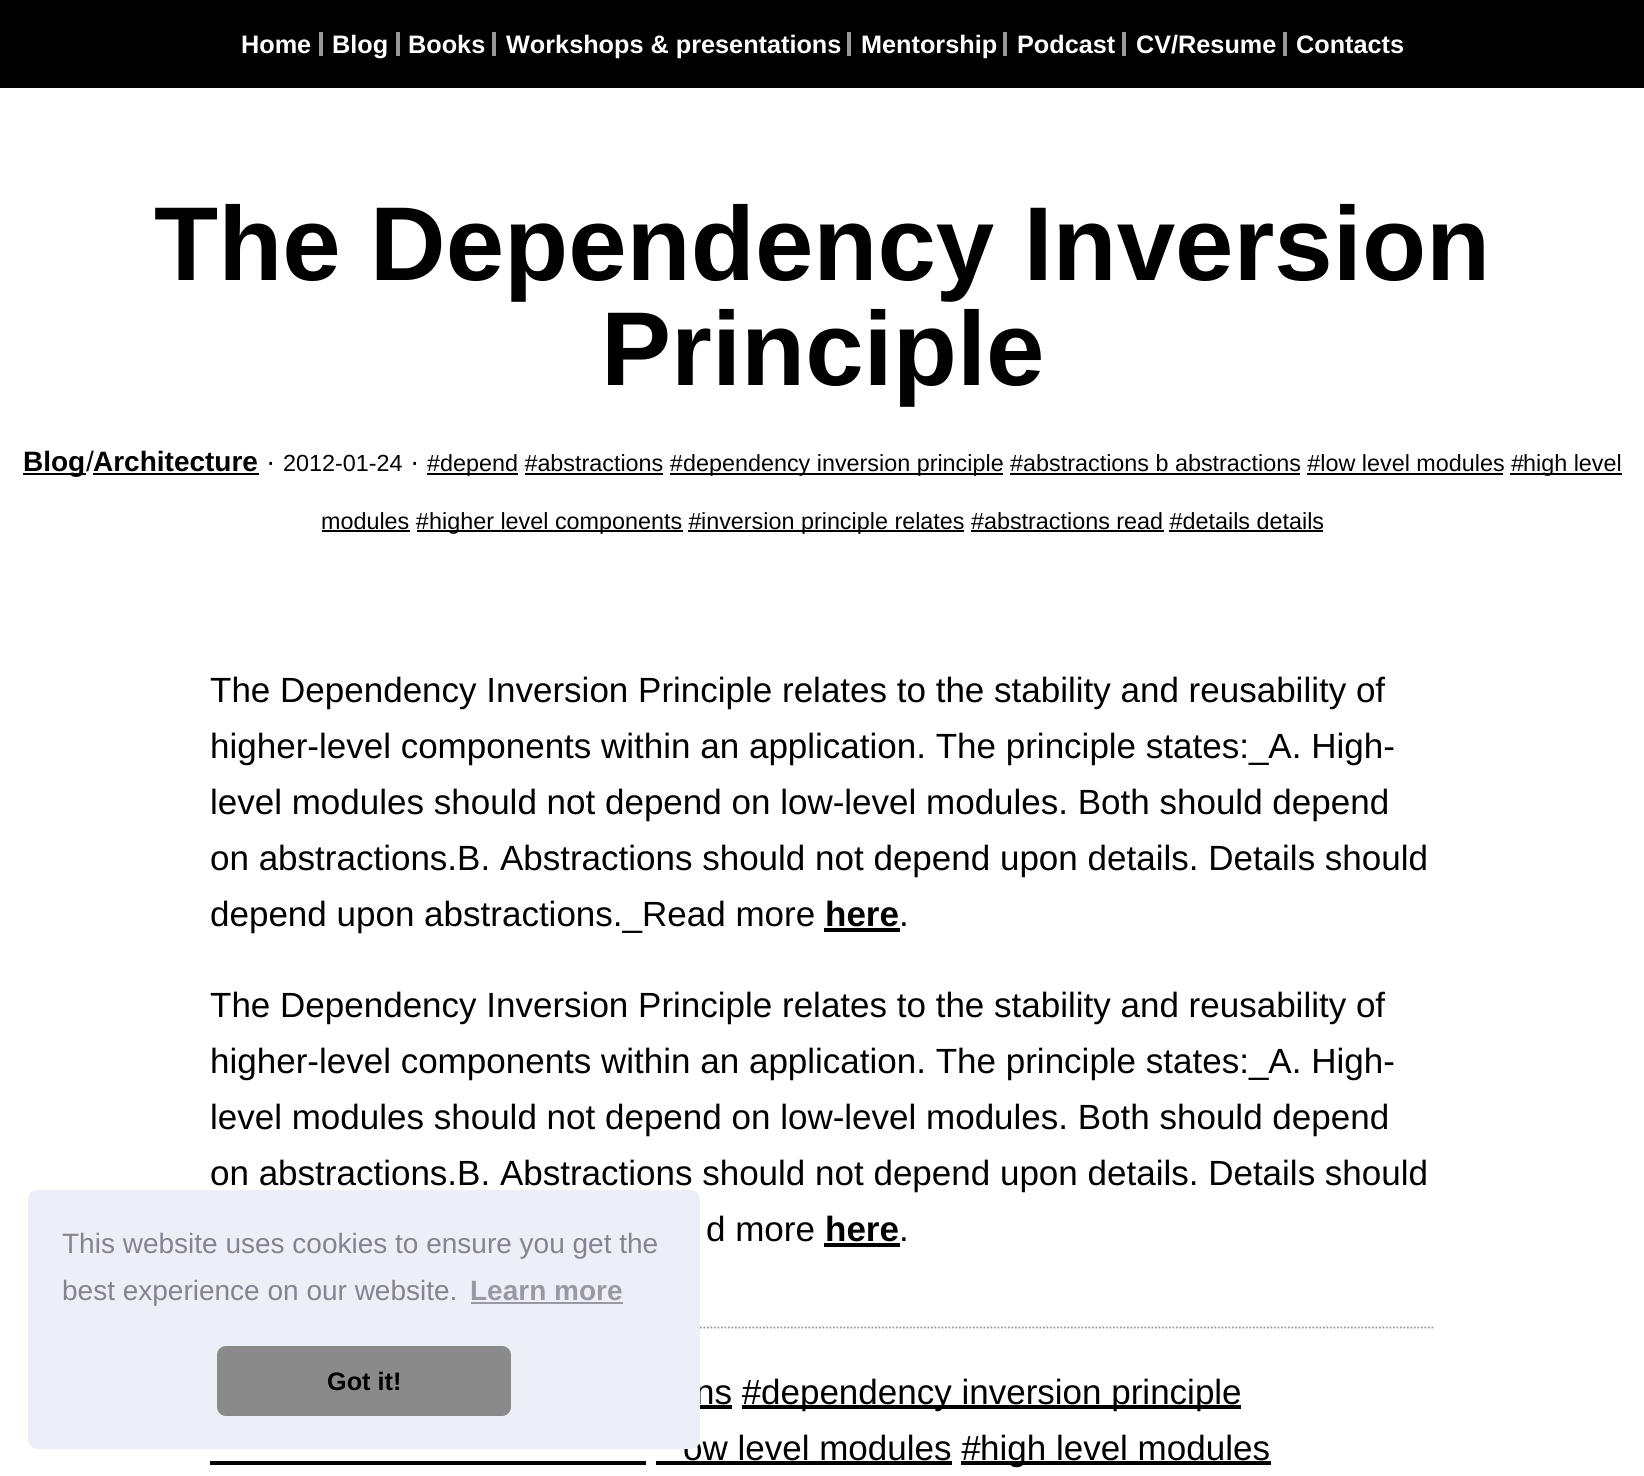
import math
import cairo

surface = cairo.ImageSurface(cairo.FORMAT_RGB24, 1644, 1476)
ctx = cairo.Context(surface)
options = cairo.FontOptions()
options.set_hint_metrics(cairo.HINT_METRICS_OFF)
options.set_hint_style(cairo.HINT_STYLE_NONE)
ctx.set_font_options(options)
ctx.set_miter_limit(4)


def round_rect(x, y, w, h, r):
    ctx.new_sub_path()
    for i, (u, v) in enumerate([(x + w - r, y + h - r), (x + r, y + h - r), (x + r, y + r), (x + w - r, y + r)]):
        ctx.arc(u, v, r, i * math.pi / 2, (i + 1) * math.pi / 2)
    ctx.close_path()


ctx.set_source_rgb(1, 1, 1)
ctx.paint()
ctx.set_source_rgb(0, 0, 0)
ctx.rectangle(0, 0, 1644, 88)
ctx.fill()
ctx.select_font_face("Liberation Sans", cairo.FONT_SLANT_NORMAL, cairo.FONT_WEIGHT_BOLD)
ctx.set_font_size(25.25)
ctx.set_source_rgb(1, 1, 1)
ctx.move_to(241, 53)
ctx.show_text("Home")
ctx.set_source_rgb(0.6, 0.6, 0.6)
ctx.rectangle(319, 32, 4, 24)
ctx.fill()
ctx.set_source_rgb(1, 1, 1)
ctx.move_to(332, 53)
ctx.show_text("Blog")
ctx.set_source_rgb(0.6, 0.6, 0.6)
ctx.rectangle(396, 32, 4, 24)
ctx.fill()
ctx.set_source_rgb(1, 1, 1)
ctx.move_to(408, 53)
ctx.show_text("Books")
ctx.set_source_rgb(0.6, 0.6, 0.6)
ctx.rectangle(492, 32, 4, 24)
ctx.fill()
ctx.set_source_rgb(1, 1, 1)
ctx.move_to(506, 53)
ctx.show_text("Workshops & presentations")
ctx.set_source_rgb(0.6, 0.6, 0.6)
ctx.rectangle(847, 32, 4, 24)
ctx.fill()
ctx.set_source_rgb(1, 1, 1)
ctx.move_to(861, 53)
ctx.show_text("Mentorship")
ctx.set_source_rgb(0.6, 0.6, 0.6)
ctx.rectangle(1003, 32, 4, 24)
ctx.fill()
ctx.set_source_rgb(1, 1, 1)
ctx.move_to(1017, 53)
ctx.show_text("Podcast")
ctx.set_source_rgb(0.6, 0.6, 0.6)
ctx.rectangle(1122, 32, 4, 24)
ctx.fill()
ctx.set_source_rgb(1, 1, 1)
ctx.move_to(1136, 53)
ctx.show_text("CV/Resume")
ctx.set_source_rgb(0.6, 0.6, 0.6)
ctx.rectangle(1283, 32, 4, 24)
ctx.fill()
ctx.set_source_rgb(1, 1, 1)
ctx.move_to(1296, 53)
ctx.show_text("Contacts")
ctx.set_font_size(105)
ctx.set_source_rgb(0, 0, 0)
ctx.move_to(154, 280)
ctx.show_text("The Dependency Inversion")
ctx.move_to(601, 385)
ctx.show_text("Principle")
ctx.rectangle(23, 473, 63, 2)
ctx.fill()
ctx.set_font_size(28)
ctx.move_to(23, 471)
ctx.show_text("Blog Architecture")
ctx.select_font_face("Liberation Sans")
ctx.move_to(86, 471)
ctx.show_text("/")
ctx.move_to(266, 471)
ctx.show_text("·")
ctx.set_font_size(23.35)
ctx.move_to(283, 471)
ctx.show_text("2012-01-24")
ctx.set_font_size(28)
ctx.move_to(410, 471)
ctx.show_text("·")
ctx.rectangle(427, 473, 91, 2)
ctx.fill()
ctx.set_font_size(23.35)
ctx.move_to(427, 471)
ctx.show_text("#depend #abstractions #")
ctx.rectangle(525, 473, 138, 2)
ctx.fill()
ctx.rectangle(670, 473, 333, 2)
ctx.fill()
ctx.move_to(683, 471)
ctx.show_text("dependency inversion principle #abstractions b abstractions #low level modules #")
ctx.rectangle(1010, 473, 290, 2)
ctx.fill()
ctx.rectangle(1307, 473, 196, 2)
ctx.fill()
ctx.rectangle(1510, 473, 112, 2)
ctx.fill()
ctx.move_to(1523, 471)
ctx.show_text("high level")
ctx.rectangle(93, 473, 166, 2)
ctx.fill()
ctx.move_to(321, 529)
ctx.show_text("modules #")
ctx.rectangle(322, 530, 88, 2)
ctx.fill()
ctx.rectangle(417, 530, 266, 2)
ctx.fill()
ctx.move_to(429, 529)
ctx.show_text("higher level components #")
ctx.rectangle(688, 530, 276, 2)
ctx.fill()
ctx.move_to(701, 529)
ctx.show_text("inversion principle relates #abstractions read #details details")
ctx.rectangle(971, 530, 193, 2)
ctx.fill()
ctx.rectangle(1169, 530, 154, 2)
ctx.fill()
ctx.set_font_size(35)
ctx.move_to(210, 702)
ctx.show_text("The Dependency Inversion Principle relates to the stability and reusability of")
ctx.move_to(210, 758)
ctx.show_text("higher-level components within an application. The principle states:_A. High-")
ctx.move_to(210, 814)
ctx.show_text("level modules should not depend on low-level modules. Both should depend")
ctx.move_to(210, 870)
ctx.show_text("on abstractions.B. Abstractions should not depend upon details. Details should")
ctx.move_to(210, 926)
ctx.show_text("depend upon abstractions._Read more")
ctx.select_font_face("Liberation Sans", cairo.FONT_SLANT_NORMAL, cairo.FONT_WEIGHT_BOLD)
ctx.move_to(825, 926)
ctx.show_text("here")
ctx.rectangle(824, 928, 76, 4)
ctx.fill()
ctx.select_font_face("Liberation Sans")
ctx.move_to(899, 926)
ctx.show_text(".")
ctx.move_to(210, 1017)
ctx.show_text("The Dependency Inversion Principle relates to the stability and reusability of")
ctx.move_to(210, 1073)
ctx.show_text("higher-level components within an application. The principle states:_A. High-")
ctx.move_to(210, 1129)
ctx.show_text("level modules should not depend on low-level modules. Both should depend")
ctx.move_to(210, 1185)
ctx.show_text("on abstractions.B. Abstractions should not depend upon details. Details should")
ctx.move_to(706, 1241)
ctx.show_text("d more")
ctx.select_font_face("Liberation Sans", cairo.FONT_SLANT_NORMAL, cairo.FONT_WEIGHT_BOLD)
ctx.move_to(825, 1241)
ctx.show_text("here")
ctx.rectangle(824, 1243, 76, 4)
ctx.fill()
ctx.select_font_face("Liberation Sans")
ctx.move_to(899, 1241)
ctx.show_text(".")
ctx.new_path()
ctx.move_to(210, 1327.5)
ctx.line_to(1435, 1327.5)
ctx.set_source_rgb(0.6, 0.6, 0.6)
ctx.set_line_width(1.8)
ctx.set_dash([1.75, 1.75])
ctx.stroke()
ctx.set_source_rgb(0, 0, 0)
ctx.move_to(695, 1404)
ctx.show_text("ns #")
ctx.rectangle(700, 1405, 32, 4)
ctx.fill()
ctx.rectangle(742, 1405, 499, 4)
ctx.fill()
ctx.move_to(761, 1404)
ctx.show_text("dependency inversion principle")
ctx.rectangle(210, 1461, 436, 4)
ctx.fill()
ctx.move_to(683, 1460)
ctx.show_text("ow level modules #")
ctx.rectangle(656, 1461, 296, 4)
ctx.fill()
ctx.rectangle(961, 1461, 310, 4)
ctx.fill()
ctx.move_to(980, 1460)
ctx.show_text("high level modules")
ctx.set_source_rgb(0.929, 0.937, 0.961)
round_rect(28, 1190, 672, 259, 9)
ctx.fill()
ctx.set_font_size(28)
ctx.set_source_rgb(0.514, 0.514, 0.569)
ctx.move_to(62, 1253)
ctx.show_text("This website uses cookies to ensure you get the")
ctx.move_to(62, 1300)
ctx.show_text("best experience on our website.")
ctx.select_font_face("Liberation Sans", cairo.FONT_SLANT_NORMAL, cairo.FONT_WEIGHT_BOLD)
ctx.set_source_rgb(0.596, 0.6, 0.647)
ctx.move_to(470, 1300)
ctx.show_text("Learn more")
ctx.rectangle(471, 1302, 152, 2)
ctx.fill()
ctx.set_source_rgb(0.541, 0.541, 0.541)
round_rect(217, 1346, 294, 70, 9)
ctx.fill()
ctx.set_font_size(25.25)
ctx.set_source_rgb(0, 0, 0)
ctx.move_to(327, 1390)
ctx.show_text("Got it!")
surface.write_to_png("page.png")
